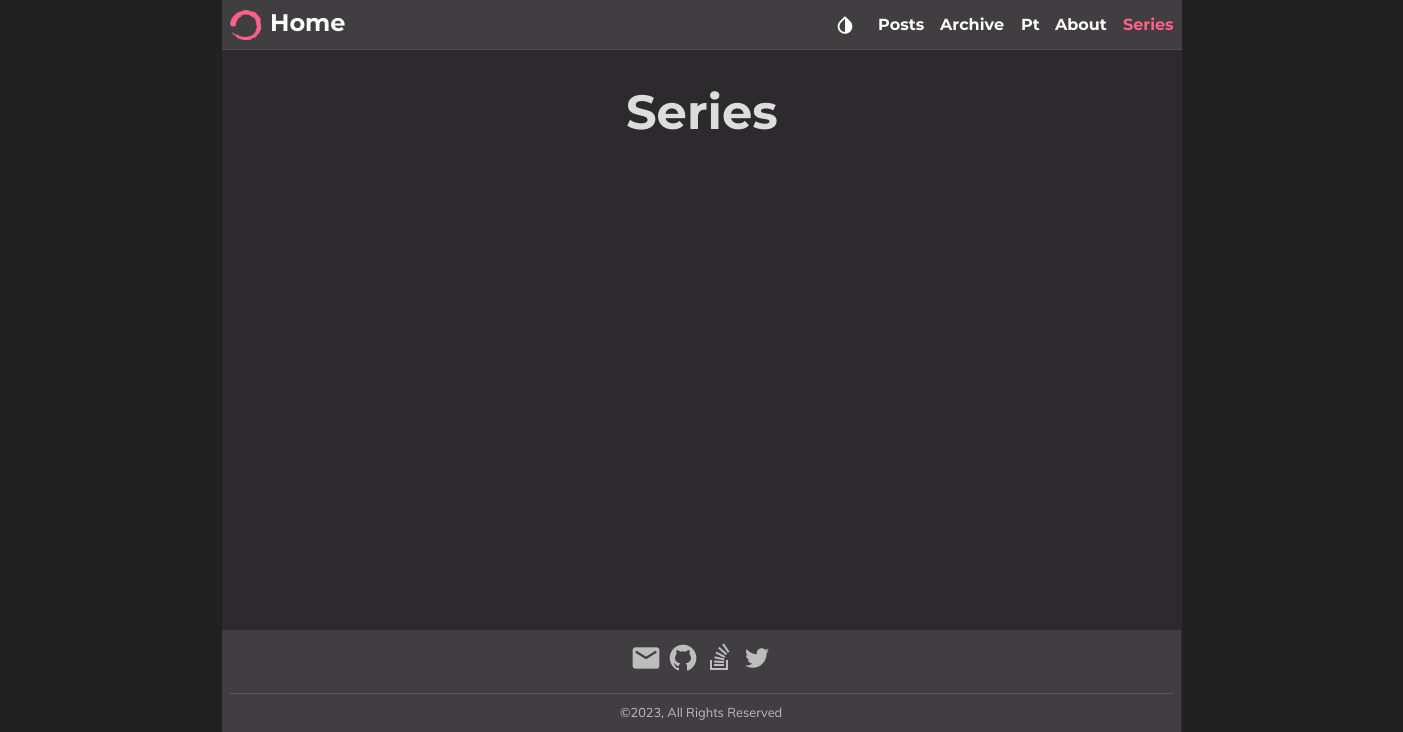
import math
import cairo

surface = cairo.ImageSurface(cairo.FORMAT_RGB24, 1403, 732)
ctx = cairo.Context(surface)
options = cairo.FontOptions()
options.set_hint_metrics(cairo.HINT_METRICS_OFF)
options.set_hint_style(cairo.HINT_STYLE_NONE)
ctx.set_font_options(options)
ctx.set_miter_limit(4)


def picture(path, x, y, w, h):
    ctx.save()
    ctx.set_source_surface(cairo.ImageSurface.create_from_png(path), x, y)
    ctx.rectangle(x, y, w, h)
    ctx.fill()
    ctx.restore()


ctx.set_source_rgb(0.129, 0.129, 0.129)
ctx.paint()
ctx.set_source_rgb(0.176, 0.165, 0.18)
ctx.rectangle(222, 50, 960, 682)
ctx.fill()
ctx.set_source_rgb(0.251, 0.243, 0.255)
ctx.rectangle(222, 0, 960, 49)
ctx.fill()
ctx.set_source_rgb(0.306, 0.306, 0.306)
ctx.rectangle(222, 49, 960, 1)
ctx.fill()
picture("img1.png", 230, 10, 31, 30)
ctx.select_font_face("Montserrat", cairo.FONT_SLANT_NORMAL, cairo.FONT_WEIGHT_BOLD)
ctx.set_font_size(24)
ctx.set_source_rgb(0.988, 0.988, 0.98)
ctx.move_to(270, 31)
ctx.show_text("Home")
picture("img2.png", 837, 16, 16, 18)
ctx.set_font_size(16)
ctx.move_to(878, 30)
ctx.show_text("Posts")
ctx.move_to(940, 30)
ctx.show_text("Archive")
ctx.move_to(1021, 30)
ctx.show_text("Pt")
ctx.move_to(1055, 30)
ctx.show_text("About")
ctx.set_source_rgb(1, 0.38, 0.533)
ctx.move_to(1123, 30)
ctx.show_text("Series")
ctx.set_font_size(48)
ctx.set_source_rgb(0.867, 0.867, 0.867)
ctx.move_to(626, 129)
ctx.show_text("Series")
ctx.set_source_rgb(0.251, 0.243, 0.255)
ctx.rectangle(222, 630, 959, 102)
ctx.fill()
picture("img3.png", 632, 647, 28, 22)
picture("img4.png", 669, 644, 28, 27)
picture("img5.png", 710, 643, 20, 27)
picture("img6.png", 745, 648, 24, 20)
ctx.set_source_rgb(0.349, 0.357, 0.361)
ctx.rectangle(230, 693, 943, 1)
ctx.fill()
ctx.select_font_face("Muli")
ctx.set_font_size(12.75)
ctx.set_source_rgb(0.741, 0.741, 0.741)
ctx.move_to(620, 717)
ctx.show_text("©2023, All Rights Reserved")
surface.write_to_png("page.png")
